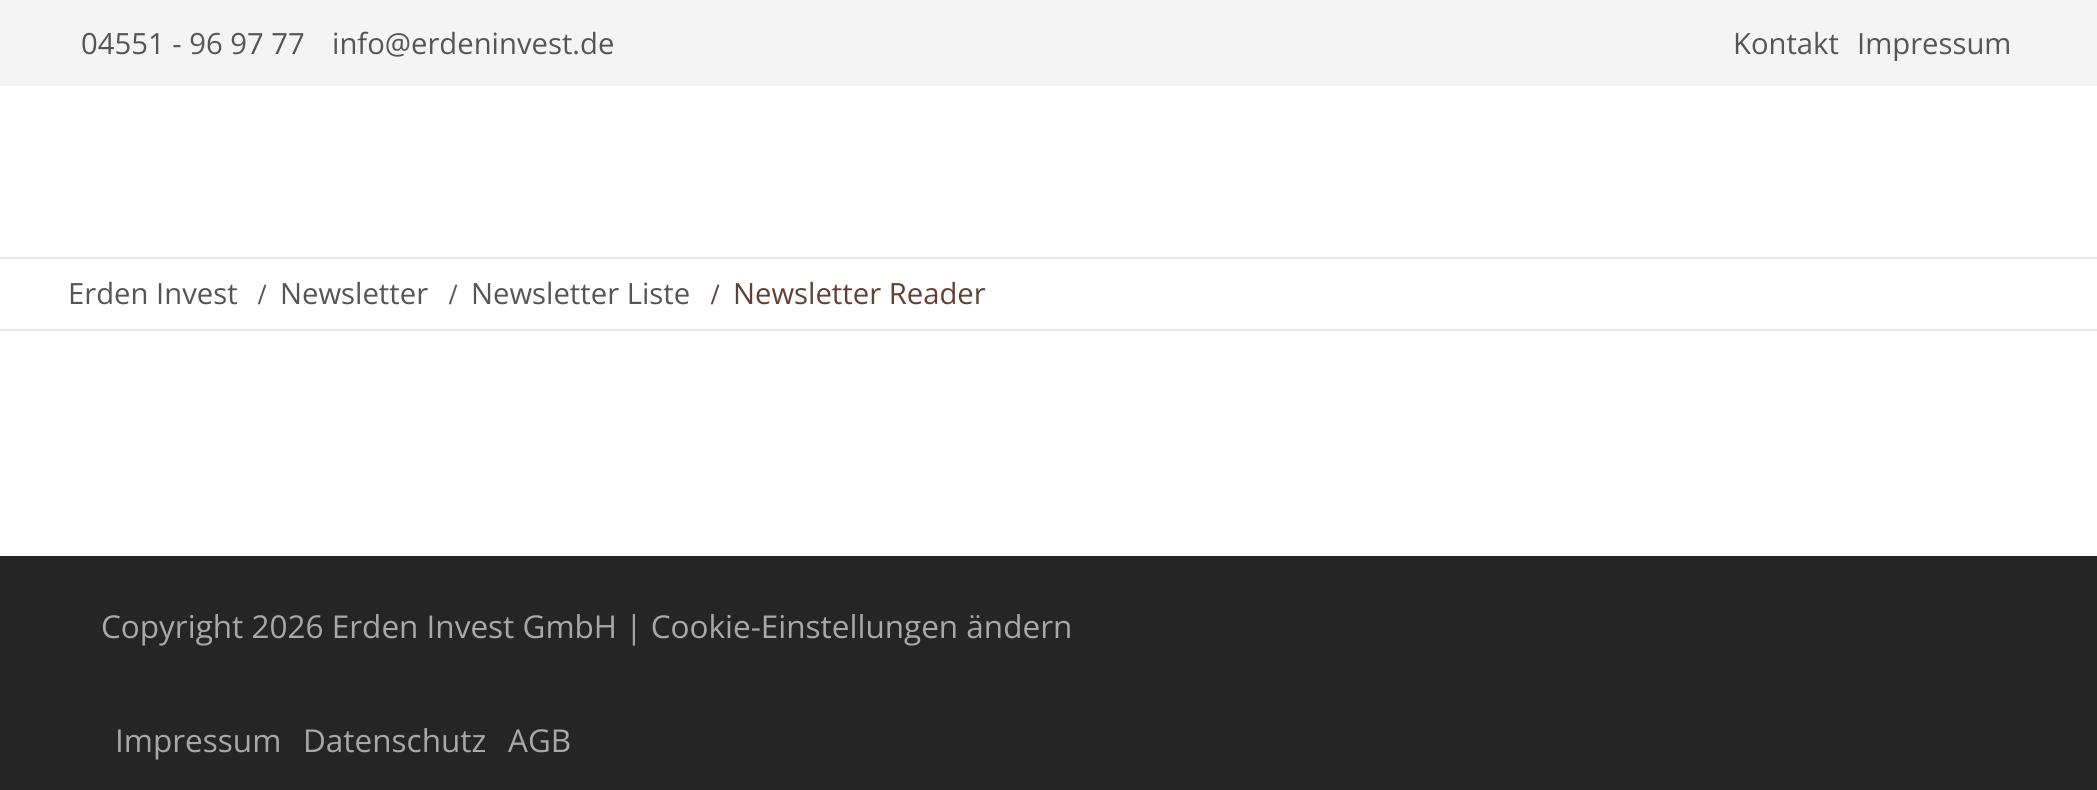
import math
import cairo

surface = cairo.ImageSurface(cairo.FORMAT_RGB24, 2097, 790)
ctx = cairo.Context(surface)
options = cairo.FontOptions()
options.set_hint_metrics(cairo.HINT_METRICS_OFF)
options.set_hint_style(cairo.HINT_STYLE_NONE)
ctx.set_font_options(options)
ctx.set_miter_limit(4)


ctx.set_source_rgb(1, 1, 1)
ctx.paint()
ctx.set_source_rgb(0.957, 0.957, 0.957)
ctx.rectangle(0, 0, 2097, 86)
ctx.fill()
ctx.select_font_face("Open Sans")
ctx.set_font_size(29.25)
ctx.set_source_rgb(0.333, 0.333, 0.333)
ctx.move_to(81, 54)
ctx.show_text("04551 - 96 97 77")
ctx.move_to(332, 54)
ctx.show_text("info@erdeninvest.de")
ctx.move_to(1733, 54)
ctx.show_text("Kontakt")
ctx.move_to(1857, 54)
ctx.show_text("Impressum")
ctx.set_source_rgb(0.902, 0.902, 0.902)
ctx.rectangle(0, 257, 2097, 2)
ctx.fill()
ctx.rectangle(0, 329, 2097, 2)
ctx.fill()
ctx.set_source_rgb(0.333, 0.333, 0.333)
ctx.move_to(68, 304)
ctx.show_text("Erden Invest")
ctx.select_font_face("Liberation Serif", cairo.FONT_SLANT_NORMAL, cairo.FONT_WEIGHT_BOLD)
ctx.move_to(258, 304)
ctx.show_text("/")
ctx.select_font_face("Open Sans")
ctx.move_to(280, 304)
ctx.show_text("Newsletter")
ctx.select_font_face("Liberation Serif", cairo.FONT_SLANT_NORMAL, cairo.FONT_WEIGHT_BOLD)
ctx.move_to(449, 304)
ctx.show_text("/")
ctx.select_font_face("Open Sans")
ctx.move_to(471, 304)
ctx.show_text("Newsletter Liste")
ctx.select_font_face("Liberation Serif", cairo.FONT_SLANT_NORMAL, cairo.FONT_WEIGHT_BOLD)
ctx.set_source_rgb(0.38, 0.255, 0.204)
ctx.move_to(711, 304)
ctx.show_text("/")
ctx.select_font_face("Open Sans")
ctx.move_to(733, 304)
ctx.show_text("Newsletter Reader")
ctx.set_source_rgb(0.145, 0.145, 0.145)
ctx.rectangle(0, 556, 2097, 234)
ctx.fill()
ctx.set_font_size(31.5)
ctx.set_source_rgb(0.659, 0.659, 0.659)
ctx.move_to(101, 638)
ctx.show_text("Copyright 2026 Erden Invest GmbH | Cookie-Einstellungen ändern")
ctx.move_to(115, 752)
ctx.show_text("Impressum")
ctx.move_to(303, 752)
ctx.show_text("Datenschutz")
ctx.move_to(508, 752)
ctx.show_text("AGB")
surface.write_to_png("page.png")
